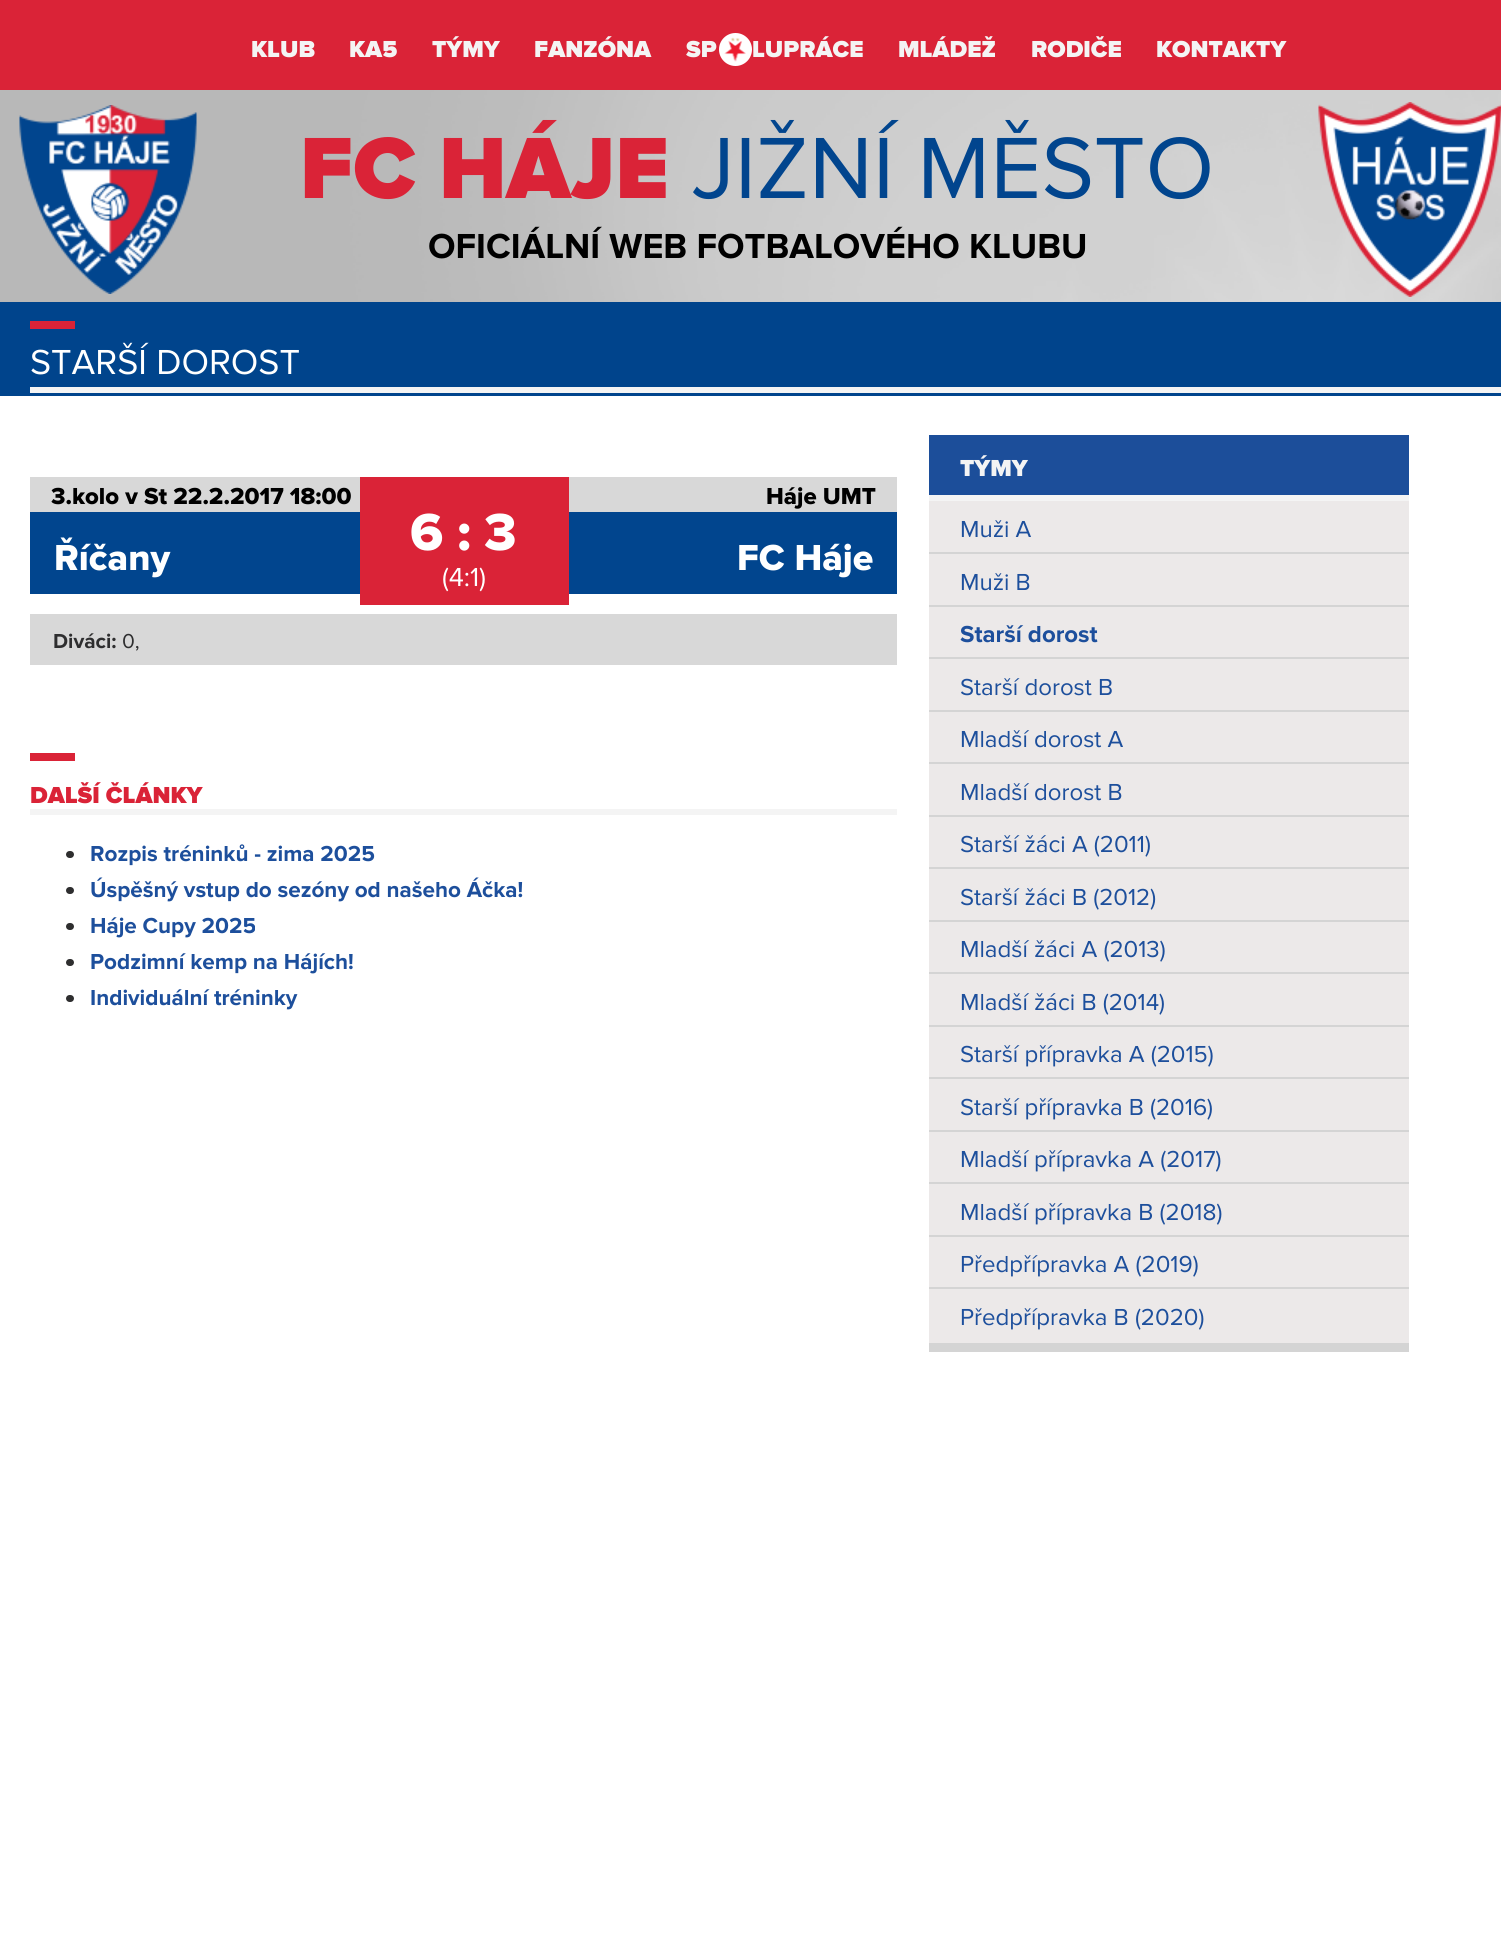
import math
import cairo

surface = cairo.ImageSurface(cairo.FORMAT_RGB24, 1501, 1948)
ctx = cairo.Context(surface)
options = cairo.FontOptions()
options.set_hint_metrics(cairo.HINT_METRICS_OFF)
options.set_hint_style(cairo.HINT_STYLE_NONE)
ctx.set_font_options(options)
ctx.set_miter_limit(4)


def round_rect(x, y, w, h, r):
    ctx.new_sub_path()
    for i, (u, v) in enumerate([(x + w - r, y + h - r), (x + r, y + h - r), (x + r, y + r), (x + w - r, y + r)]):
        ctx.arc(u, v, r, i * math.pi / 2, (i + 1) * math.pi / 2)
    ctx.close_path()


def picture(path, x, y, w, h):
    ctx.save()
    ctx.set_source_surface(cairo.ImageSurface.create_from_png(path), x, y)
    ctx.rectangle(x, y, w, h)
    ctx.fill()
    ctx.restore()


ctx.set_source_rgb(1, 1, 1)
ctx.paint()
picture("img1.png", 0, 90, 1501, 212)
ctx.set_source_rgb(0.855, 0.137, 0.216)
ctx.rectangle(0, 0, 1501, 90)
ctx.fill()
ctx.select_font_face("Proxima Nova Black")
ctx.set_font_size(24)
ctx.set_source_rgb(0.957, 0.957, 0.957)
ctx.move_to(251, 57)
ctx.show_text("KLUB")
ctx.move_to(349, 57)
ctx.show_text("KA5")
ctx.move_to(432, 57)
ctx.show_text("TÝMY")
ctx.move_to(534, 57)
ctx.show_text("FANZÓNA")
ctx.set_source_rgb(1, 1, 1)
ctx.new_path()
ctx.arc(735.5, 49.5, 16.5, 0, 2 * math.pi)
ctx.fill()
ctx.set_source_rgb(0.957, 0.957, 0.957)
ctx.move_to(752, 57)
ctx.show_text("LUPRÁCE")
ctx.move_to(686, 57)
ctx.show_text("SP")
picture("img2.png", 724, 37, 22, 25)
ctx.move_to(898, 57)
ctx.show_text("MLÁDEŽ")
ctx.move_to(1031, 57)
ctx.show_text("RODIČE")
ctx.move_to(1156, 57)
ctx.show_text("KONTAKTY")
picture("img3.png", 19, 105, 178, 189)
ctx.set_font_size(90)
ctx.set_source_rgb(0.855, 0.137, 0.216)
ctx.move_to(300, 198)
ctx.show_text("FC HÁJE")
ctx.select_font_face("Proxima Nova")
ctx.set_source_rgb(0.004, 0.271, 0.557)
ctx.move_to(692, 198)
ctx.show_text("JIŽNÍ MĚSTO")
ctx.select_font_face("Proxima Nova", cairo.FONT_SLANT_NORMAL, cairo.FONT_WEIGHT_BOLD)
ctx.set_font_size(36)
ctx.set_source_rgb(0, 0, 0)
ctx.move_to(428, 258)
ctx.show_text("OFICIÁLNÍ WEB FOTBALOVÉHO KLUBU")
picture("img4.png", 1318, 102, 183, 195)
ctx.set_source_rgb(0, 0.267, 0.549)
ctx.rectangle(0, 302, 1501, 94)
ctx.fill()
ctx.set_source_rgb(0.957, 0.957, 0.957)
ctx.rectangle(30, 387, 1471, 6)
ctx.fill()
ctx.set_source_rgb(0.855, 0.137, 0.216)
ctx.rectangle(30, 321, 45, 8)
ctx.fill()
ctx.select_font_face("Proxima Nova")
ctx.set_source_rgb(1, 1, 1)
ctx.move_to(30, 374)
ctx.show_text("STARŠÍ DOROST")
ctx.set_source_rgb(0.847, 0.847, 0.847)
ctx.rectangle(30, 477, 867, 35)
ctx.fill()
ctx.select_font_face("Proxima Nova ExtraBold")
ctx.set_font_size(24)
ctx.set_source_rgb(0, 0, 0)
ctx.move_to(51, 504)
ctx.show_text("3.kolo v St 22.2.2017 18:00")
ctx.move_to(766, 504)
ctx.show_text("Háje UMT")
ctx.set_source_rgb(0.004, 0.271, 0.557)
ctx.rectangle(30, 512, 867, 82)
ctx.fill()
ctx.set_source_rgb(0.855, 0.137, 0.216)
ctx.rectangle(360, 477, 209, 128)
ctx.fill()
ctx.set_font_size(54)
ctx.set_source_rgb(1, 1, 1)
ctx.move_to(410, 550)
ctx.show_text("6")
ctx.move_to(457, 550)
ctx.show_text(":")
ctx.move_to(484, 550)
ctx.show_text("3")
ctx.select_font_face("Proxima Nova")
ctx.set_font_size(27)
ctx.move_to(442, 586)
ctx.show_text("(4:1)")
ctx.select_font_face("Proxima Nova ExtraBold")
ctx.set_font_size(37.5)
ctx.move_to(54, 570)
ctx.show_text("Říčany")
ctx.move_to(737, 570)
ctx.show_text("FC Háje")
ctx.set_source_rgb(0.847, 0.847, 0.847)
ctx.rectangle(30, 614, 867, 51)
ctx.fill()
ctx.select_font_face("Proxima Nova", cairo.FONT_SLANT_NORMAL, cairo.FONT_WEIGHT_BOLD)
ctx.set_font_size(21)
ctx.set_source_rgb(0.18, 0.18, 0.184)
ctx.move_to(53, 648)
ctx.show_text("Diváci:")
ctx.select_font_face("Proxima Nova")
ctx.move_to(122, 648)
ctx.show_text("0,")
ctx.set_source_rgb(0.957, 0.957, 0.957)
ctx.rectangle(30, 809, 867, 6)
ctx.fill()
ctx.set_source_rgb(0.855, 0.137, 0.216)
ctx.rectangle(30, 753, 45, 8)
ctx.fill()
ctx.select_font_face("Proxima Nova Black")
ctx.set_font_size(24)
ctx.move_to(30, 803)
ctx.show_text("DALŠÍ ČLÁNKY")
ctx.set_source_rgb(0.18, 0.18, 0.184)
round_rect(66, 851, 8, 7, 3.5)
ctx.fill()
ctx.select_font_face("Proxima Nova", cairo.FONT_SLANT_NORMAL, cairo.FONT_WEIGHT_BOLD)
ctx.set_font_size(22.5)
ctx.set_source_rgb(0.114, 0.31, 0.612)
ctx.move_to(90, 861)
ctx.show_text("Rozpis tréninků - zima 2025")
ctx.set_source_rgb(0.18, 0.18, 0.184)
round_rect(66, 887, 8, 7, 3.5)
ctx.fill()
ctx.set_source_rgb(0.114, 0.31, 0.612)
ctx.move_to(90, 897)
ctx.show_text("Úspěšný vstup do sezóny od našeho Áčka!")
ctx.set_source_rgb(0.18, 0.18, 0.184)
round_rect(66, 923, 8, 7, 3.5)
ctx.fill()
ctx.set_source_rgb(0.114, 0.31, 0.612)
ctx.move_to(90, 933)
ctx.show_text("Háje Cupy 2025")
ctx.set_source_rgb(0.18, 0.18, 0.184)
round_rect(66, 959, 8, 7, 3.5)
ctx.fill()
ctx.set_source_rgb(0.114, 0.31, 0.612)
ctx.move_to(90, 969)
ctx.show_text("Podzimní kemp na Hájích!")
ctx.set_source_rgb(0.18, 0.18, 0.184)
round_rect(66, 995, 8, 7, 3.5)
ctx.fill()
ctx.set_source_rgb(0.114, 0.31, 0.612)
ctx.move_to(90, 1005)
ctx.show_text("Individuální tréninky")
ctx.set_source_rgb(0.11, 0.306, 0.604)
ctx.rectangle(929, 435, 480, 60)
ctx.fill()
ctx.set_source_rgb(0.957, 0.957, 0.957)
ctx.rectangle(929, 495, 480, 6)
ctx.fill()
ctx.select_font_face("Proxima Nova Black")
ctx.set_font_size(24)
ctx.move_to(960, 476)
ctx.show_text("TÝMY")
ctx.set_source_rgb(0.925, 0.914, 0.914)
ctx.rectangle(929, 501, 480, 842)
ctx.fill()
ctx.set_source_rgb(0.831, 0.831, 0.831)
ctx.rectangle(929, 1343, 480, 9)
ctx.fill()
ctx.rectangle(929, 552, 480, 2)
ctx.fill()
ctx.select_font_face("Proxima Nova")
ctx.set_source_rgb(0.114, 0.31, 0.612)
ctx.move_to(960, 537)
ctx.show_text("Muži A")
ctx.set_source_rgb(0.831, 0.831, 0.831)
ctx.rectangle(929, 605, 480, 2)
ctx.fill()
ctx.set_source_rgb(0.114, 0.31, 0.612)
ctx.move_to(960, 590)
ctx.show_text("Muži B")
ctx.set_source_rgb(0.831, 0.831, 0.831)
ctx.rectangle(929, 657, 480, 2)
ctx.fill()
ctx.select_font_face("Proxima Nova", cairo.FONT_SLANT_NORMAL, cairo.FONT_WEIGHT_BOLD)
ctx.set_source_rgb(0.114, 0.31, 0.612)
ctx.move_to(960, 642)
ctx.show_text("Starší dorost")
ctx.set_source_rgb(0.831, 0.831, 0.831)
ctx.rectangle(929, 710, 480, 2)
ctx.fill()
ctx.select_font_face("Proxima Nova")
ctx.set_source_rgb(0.114, 0.31, 0.612)
ctx.move_to(960, 695)
ctx.show_text("Starší dorost B")
ctx.set_source_rgb(0.831, 0.831, 0.831)
ctx.rectangle(929, 762, 480, 2)
ctx.fill()
ctx.set_source_rgb(0.114, 0.31, 0.612)
ctx.move_to(960, 747)
ctx.show_text("Mladší dorost A")
ctx.set_source_rgb(0.831, 0.831, 0.831)
ctx.rectangle(929, 815, 480, 2)
ctx.fill()
ctx.set_source_rgb(0.114, 0.31, 0.612)
ctx.move_to(960, 800)
ctx.show_text("Mladší dorost B")
ctx.set_source_rgb(0.831, 0.831, 0.831)
ctx.rectangle(929, 867, 480, 2)
ctx.fill()
ctx.set_source_rgb(0.114, 0.31, 0.612)
ctx.move_to(960, 852)
ctx.show_text("Starší žáci A (2011)")
ctx.set_source_rgb(0.831, 0.831, 0.831)
ctx.rectangle(929, 920, 480, 2)
ctx.fill()
ctx.set_source_rgb(0.114, 0.31, 0.612)
ctx.move_to(960, 905)
ctx.show_text("Starší žáci B (2012)")
ctx.set_source_rgb(0.831, 0.831, 0.831)
ctx.rectangle(929, 972, 480, 2)
ctx.fill()
ctx.set_source_rgb(0.114, 0.31, 0.612)
ctx.move_to(960, 957)
ctx.show_text("Mladší žáci A (2013)")
ctx.set_source_rgb(0.831, 0.831, 0.831)
ctx.rectangle(929, 1025, 480, 2)
ctx.fill()
ctx.set_source_rgb(0.114, 0.31, 0.612)
ctx.move_to(960, 1010)
ctx.show_text("Mladší žáci B (2014)")
ctx.set_source_rgb(0.831, 0.831, 0.831)
ctx.rectangle(929, 1077, 480, 2)
ctx.fill()
ctx.set_source_rgb(0.114, 0.31, 0.612)
ctx.move_to(960, 1062)
ctx.show_text("Starší přípravka A (2015)")
ctx.set_source_rgb(0.831, 0.831, 0.831)
ctx.rectangle(929, 1130, 480, 2)
ctx.fill()
ctx.set_source_rgb(0.114, 0.31, 0.612)
ctx.move_to(960, 1115)
ctx.show_text("Starší přípravka B (2016)")
ctx.set_source_rgb(0.831, 0.831, 0.831)
ctx.rectangle(929, 1182, 480, 2)
ctx.fill()
ctx.set_source_rgb(0.114, 0.31, 0.612)
ctx.move_to(960, 1167)
ctx.show_text("Mladší přípravka A (2017)")
ctx.set_source_rgb(0.831, 0.831, 0.831)
ctx.rectangle(929, 1235, 480, 2)
ctx.fill()
ctx.set_source_rgb(0.114, 0.31, 0.612)
ctx.move_to(960, 1220)
ctx.show_text("Mladší přípravka B (2018)")
ctx.set_source_rgb(0.831, 0.831, 0.831)
ctx.rectangle(929, 1287, 480, 2)
ctx.fill()
ctx.set_source_rgb(0.114, 0.31, 0.612)
ctx.move_to(960, 1272)
ctx.show_text("Předpřípravka A (2019)")
ctx.move_to(960, 1325)
ctx.show_text("Předpřípravka B (2020)")
surface.write_to_png("page.png")
